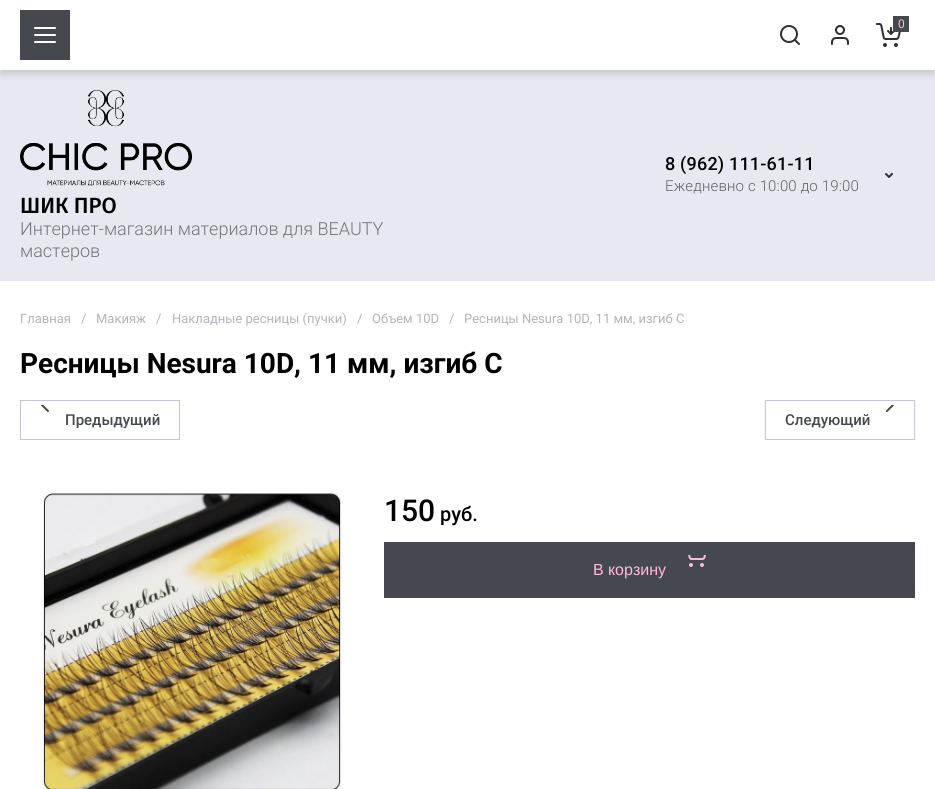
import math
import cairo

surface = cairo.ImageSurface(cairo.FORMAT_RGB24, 935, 789)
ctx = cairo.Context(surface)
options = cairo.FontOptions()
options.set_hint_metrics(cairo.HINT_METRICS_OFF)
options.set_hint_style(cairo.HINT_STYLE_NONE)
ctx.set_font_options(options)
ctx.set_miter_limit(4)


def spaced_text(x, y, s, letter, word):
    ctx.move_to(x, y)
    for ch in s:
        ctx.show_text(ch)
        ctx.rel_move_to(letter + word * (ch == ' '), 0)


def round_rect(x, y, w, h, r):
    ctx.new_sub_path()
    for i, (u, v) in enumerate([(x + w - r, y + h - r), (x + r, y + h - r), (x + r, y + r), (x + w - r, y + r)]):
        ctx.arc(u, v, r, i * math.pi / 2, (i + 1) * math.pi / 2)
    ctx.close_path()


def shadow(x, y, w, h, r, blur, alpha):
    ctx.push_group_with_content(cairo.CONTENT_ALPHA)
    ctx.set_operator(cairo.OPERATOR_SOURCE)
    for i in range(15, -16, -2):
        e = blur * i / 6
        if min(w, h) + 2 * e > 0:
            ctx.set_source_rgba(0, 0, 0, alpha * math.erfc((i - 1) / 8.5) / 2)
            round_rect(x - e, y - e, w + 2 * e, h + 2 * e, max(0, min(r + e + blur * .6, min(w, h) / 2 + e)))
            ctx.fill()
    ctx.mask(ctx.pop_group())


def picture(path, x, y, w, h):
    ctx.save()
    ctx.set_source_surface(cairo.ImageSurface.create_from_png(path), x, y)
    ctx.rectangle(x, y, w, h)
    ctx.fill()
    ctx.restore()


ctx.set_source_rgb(1, 1, 1)
ctx.paint()
ctx.set_source_rgb(0.906, 0.91, 0.945)
ctx.rectangle(0, 70, 935, 211)
ctx.fill()
ctx.set_source_rgb(0, 0, 0)
shadow(0, 4, 935, 70, 0, 4, 0.15)
ctx.set_source_rgb(1, 1, 1)
ctx.rectangle(0, 0, 935, 70)
ctx.fill()
ctx.set_source_rgb(0.271, 0.282, 0.306)
ctx.rectangle(20, 10, 50, 50)
ctx.fill()
picture("img1.png", 34, 27, 22, 16)
picture("img2.png", 876, 23, 25, 24)
ctx.rectangle(893, 16, 16, 16)
ctx.fill()
ctx.select_font_face("Roboto")
ctx.set_font_size(12)
ctx.set_source_rgb(1, 0.725, 0.859)
ctx.move_to(898, 28)
ctx.show_text("0")
picture("img3.png", 780, 25, 20, 20)
picture("img4.png", 831, 25, 18, 20)
ctx.select_font_face("Roboto Medium")
ctx.set_font_size(18)
ctx.set_source_rgb(0, 0, 0)
spaced_text(665, 170, "8 (962) 111-61-11", 0.2, 0)
ctx.select_font_face("Roboto Light")
ctx.set_font_size(15)
ctx.set_source_rgb(0.38, 0.38, 0.396)
spaced_text(665, 191, "Ежедневно с 10:00 до 19:00", 0.15, 0)
picture("img5.png", 885, 173, 8, 5)
picture("img6.png", 20, 90, 172, 96)
ctx.select_font_face("Fira Sans Medium")
ctx.set_font_size(22)
ctx.set_source_rgb(0, 0, 0)
ctx.move_to(20, 213)
ctx.show_text("ШИК ПРО")
ctx.select_font_face("Roboto Light")
ctx.set_font_size(18)
ctx.set_source_rgb(0.455, 0.455, 0.475)
ctx.move_to(20, 235)
ctx.show_text("Интернет-магазин материалов для BEAUTY")
ctx.move_to(20, 257)
ctx.show_text("мастеров")
ctx.select_font_face("Roboto")
ctx.set_font_size(13)
ctx.set_source_rgb(0.702, 0.706, 0.749)
ctx.move_to(20, 323)
ctx.show_text("Главная")
ctx.move_to(81, 323)
ctx.show_text("/")
ctx.move_to(96, 323)
ctx.show_text("Макияж")
ctx.move_to(156, 323)
ctx.show_text("/")
ctx.move_to(172, 323)
ctx.show_text("Накладные ресницы (пучки)")
ctx.move_to(357, 323)
ctx.show_text("/")
ctx.move_to(372, 323)
ctx.show_text("Объем 10D")
ctx.move_to(449, 323)
ctx.show_text("/")
ctx.move_to(464, 323)
ctx.show_text("Ресницы Nesura 10D, 11 мм, изгиб С")
ctx.select_font_face("Roboto", cairo.FONT_SLANT_NORMAL, cairo.FONT_WEIGHT_BOLD)
ctx.set_font_size(28)
ctx.set_source_rgb(0, 0, 0)
ctx.move_to(20, 373)
ctx.show_text("Ресницы Nesura 10D, 11 мм, изгиб С")
ctx.rectangle(20.5, 400.5, 159, 39)
ctx.set_source_rgb(0.776, 0.769, 0.875)
ctx.set_line_width(1)
ctx.stroke()
picture("img7.png", 41, 405, 8, 7)
ctx.select_font_face("Roboto Medium")
ctx.set_font_size(15)
ctx.set_source_rgb(0.271, 0.282, 0.306)
ctx.move_to(65, 425)
ctx.show_text("Предыдущий")
ctx.rectangle(765.5, 400.5, 149, 39)
ctx.set_source_rgb(0.776, 0.769, 0.875)
ctx.stroke()
picture("img8.png", 886, 405, 8, 7)
ctx.set_source_rgb(0.271, 0.282, 0.306)
ctx.move_to(785, 425)
ctx.show_text("Следующий")
picture("img9.png", 42, 492, 301, 297)
ctx.set_font_size(30)
ctx.set_source_rgb(0, 0, 0)
ctx.move_to(384, 521)
ctx.show_text("150")
ctx.set_font_size(20)
ctx.move_to(440, 521)
ctx.show_text("руб.")
ctx.set_source_rgb(0.271, 0.282, 0.306)
ctx.rectangle(384, 542, 531, 56)
ctx.fill()
picture("img10.png", 688, 555, 18, 12)
ctx.select_font_face("Liberation Sans")
ctx.set_font_size(16)
ctx.set_source_rgb(1, 0.725, 0.859)
ctx.move_to(593, 575)
ctx.show_text("В корзину")
surface.write_to_png("page.png")
